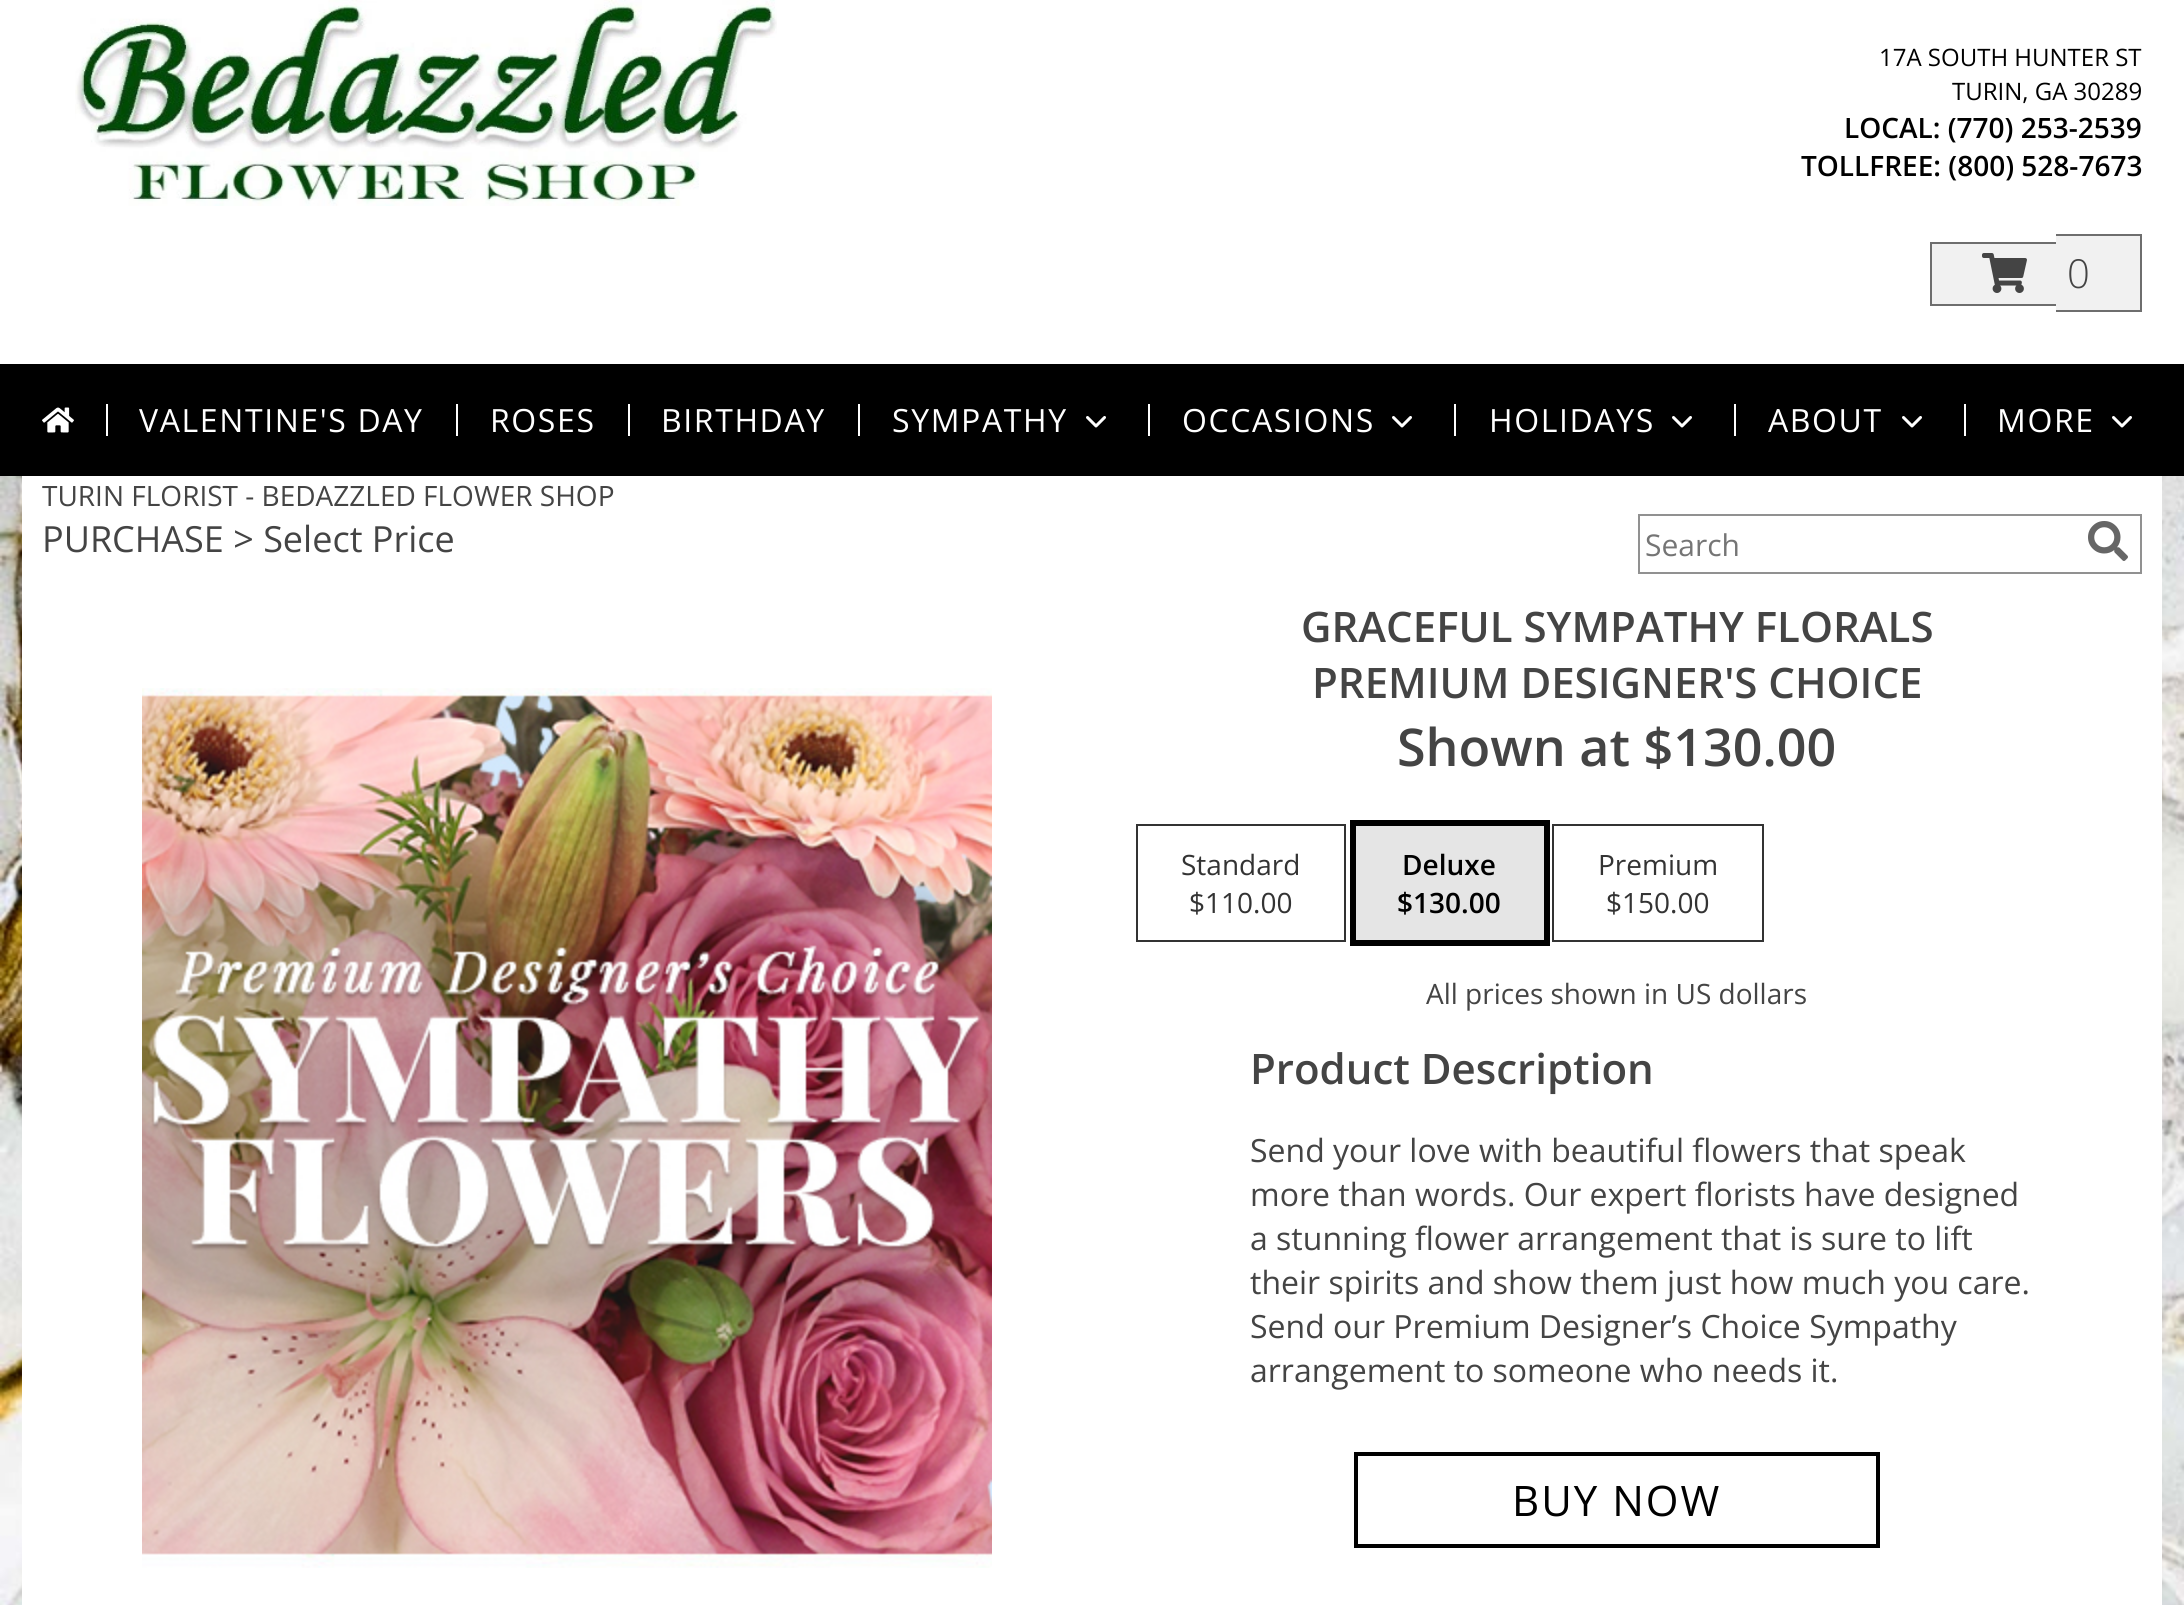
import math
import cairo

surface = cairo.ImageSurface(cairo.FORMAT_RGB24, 2184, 1605)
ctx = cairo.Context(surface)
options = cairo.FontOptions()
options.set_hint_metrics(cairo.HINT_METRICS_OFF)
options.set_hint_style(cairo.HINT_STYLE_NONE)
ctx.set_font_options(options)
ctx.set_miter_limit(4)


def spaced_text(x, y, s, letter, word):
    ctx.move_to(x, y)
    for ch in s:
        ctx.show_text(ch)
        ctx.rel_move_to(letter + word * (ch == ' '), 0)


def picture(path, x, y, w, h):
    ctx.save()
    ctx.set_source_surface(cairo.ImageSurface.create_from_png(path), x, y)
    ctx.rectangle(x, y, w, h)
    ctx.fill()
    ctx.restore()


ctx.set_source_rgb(1, 1, 1)
ctx.paint()
picture("img1.png", 0, 476, 2184, 1129)
ctx.set_source_rgb(1, 1, 1)
ctx.rectangle(22, 476, 2140, 1129)
ctx.fill()
picture("img2.png", 75, 0, 702, 206)
ctx.select_font_face("Open Sans")
ctx.set_font_size(24)
ctx.set_source_rgb(0, 0, 0)
ctx.move_to(1879, 66)
ctx.show_text("17A SOUTH HUNTER ST")
ctx.move_to(1952, 100)
ctx.show_text("TURIN, GA 30289")
ctx.select_font_face("Open Sans SemiBold")
ctx.set_font_size(28)
ctx.move_to(1844, 138)
ctx.show_text("LOCAL: (770) 253-2539")
ctx.move_to(1801, 176)
ctx.show_text("TOLLFREE: (800) 528-7673")
ctx.set_source_rgb(0.945, 0.945, 0.945)
ctx.rectangle(1932, 244, 124, 60)
ctx.fill()
ctx.set_source_rgb(0.431, 0.431, 0.431)
ctx.rectangle(1930, 242, 126, 2)
ctx.fill()
ctx.rectangle(1930, 304, 126, 2)
ctx.fill()
ctx.rectangle(1930, 242, 2, 64)
ctx.fill()
ctx.set_source_rgb(0.945, 0.945, 0.945)
ctx.rectangle(2056, 236, 84, 74)
ctx.fill()
ctx.set_source_rgb(0.431, 0.431, 0.431)
ctx.rectangle(2056, 234, 86, 2)
ctx.fill()
ctx.rectangle(2056, 310, 12, 2)
ctx.fill()
ctx.rectangle(2140, 234, 2, 78)
ctx.fill()
ctx.rectangle(2068, 310, 74, 2)
ctx.fill()
picture("img3.png", 1982, 253, 45, 40)
ctx.select_font_face("Open Sans Light")
ctx.set_font_size(40)
ctx.set_source_rgb(0.267, 0.267, 0.267)
ctx.move_to(2067, 288)
ctx.show_text("0")
ctx.set_source_rgb(0, 0, 0)
ctx.rectangle(0, 364, 2184, 112)
ctx.fill()
picture("img4.png", 42, 407, 32, 26)
ctx.set_source_rgb(1, 1, 1)
ctx.rectangle(106, 404, 2, 32)
ctx.fill()
ctx.select_font_face("Open Sans")
ctx.set_font_size(32)
spaced_text(139, 432, "VALENTINE'S DAY", 1.6, 0)
ctx.rectangle(456, 404, 2, 32)
ctx.fill()
spaced_text(490, 432, "ROSES", 1.6, 0)
ctx.rectangle(628, 404, 2, 32)
ctx.fill()
spaced_text(661, 432, "BIRTHDAY", 1.6, 0)
ctx.rectangle(858, 404, 2, 32)
ctx.fill()
spaced_text(892, 432, "SYMPATHY", 1.6, 0)
picture("img5.png", 1086, 416, 20, 12)
ctx.rectangle(1148, 404, 2, 32)
ctx.fill()
spaced_text(1182, 432, "OCCASIONS", 1.6, 0)
picture("img5.png", 1392, 416, 20, 12)
ctx.rectangle(1454, 404, 2, 32)
ctx.fill()
spaced_text(1489, 432, "HOLIDAYS", 1.6, 0)
picture("img5.png", 1672, 416, 20, 12)
ctx.rectangle(1734, 404, 2, 32)
ctx.fill()
spaced_text(1768, 432, "ABOUT", 1.6, 0)
picture("img5.png", 1902, 416, 20, 12)
ctx.rectangle(1964, 404, 2, 32)
ctx.fill()
spaced_text(1997, 432, "MORE", 1.6, 0)
picture("img5.png", 2112, 416, 20, 12)
ctx.set_font_size(28)
ctx.set_source_rgb(0.267, 0.267, 0.267)
ctx.move_to(42, 506)
ctx.show_text("TURIN FLORIST - BEDAZZLED FLOWER SHOP")
ctx.set_font_size(36)
ctx.move_to(42, 552)
ctx.show_text("PURCHASE > Select Price")
ctx.rectangle(1639, 515, 502, 58)
ctx.set_source_rgb(0.569, 0.569, 0.569)
ctx.stroke()
ctx.set_font_size(30)
ctx.set_source_rgb(0.459, 0.459, 0.459)
ctx.move_to(1645, 556)
ctx.show_text("Search")
picture("img6.png", 2088, 521, 40, 40)
picture("img7.png", 142, 688, 850, 880)
ctx.select_font_face("Open Sans SemiBold")
ctx.set_font_size(42)
ctx.set_source_rgb(0.267, 0.267, 0.267)
ctx.move_to(1301, 642)
ctx.show_text("GRACEFUL SYMPATHY FLORALS")
ctx.move_to(1312, 698)
ctx.show_text("PREMIUM DESIGNER'S CHOICE")
ctx.set_font_size(52)
ctx.move_to(1397, 766)
ctx.show_text("Shown at $130.00")
ctx.rectangle(1137, 825, 208, 116)
ctx.set_source_rgb(0.2, 0.2, 0.2)
ctx.stroke()
ctx.select_font_face("Open Sans")
ctx.set_font_size(28)
ctx.move_to(1181, 875)
ctx.show_text("Standard")
ctx.move_to(1189, 913)
ctx.show_text("$110.00")
ctx.rectangle(1353, 823, 194, 120)
ctx.set_source_rgb(0, 0, 0)
ctx.set_line_width(6)
ctx.stroke()
ctx.set_source_rgb(0.898, 0.898, 0.898)
ctx.rectangle(1356, 826, 188, 114)
ctx.fill()
ctx.select_font_face("Open Sans SemiBold")
ctx.set_source_rgb(0, 0, 0)
ctx.move_to(1402, 875)
ctx.show_text("Deluxe")
ctx.move_to(1397, 913)
ctx.show_text("$130.00")
ctx.rectangle(1553, 825, 210, 116)
ctx.set_source_rgb(0.2, 0.2, 0.2)
ctx.set_line_width(2)
ctx.stroke()
ctx.select_font_face("Open Sans")
ctx.move_to(1598, 875)
ctx.show_text("Premium")
ctx.move_to(1606, 913)
ctx.show_text("$150.00")
ctx.set_source_rgb(0.267, 0.267, 0.267)
ctx.move_to(1426, 1004)
ctx.show_text("All prices shown in US dollars")
ctx.select_font_face("Open Sans SemiBold")
ctx.set_font_size(42)
ctx.move_to(1250, 1084)
ctx.show_text("Product Description")
ctx.select_font_face("Open Sans")
ctx.set_font_size(32)
ctx.move_to(1250, 1162)
ctx.show_text("Send your love with beautiful flowers that speak")
ctx.move_to(1250, 1206)
ctx.show_text("more than words. Our expert florists have designed")
ctx.move_to(1250, 1250)
ctx.show_text("a stunning flower arrangement that is sure to lift")
ctx.move_to(1250, 1294)
ctx.show_text("their spirits and show them just how much you care.")
ctx.move_to(1250, 1338)
ctx.show_text("Send our Premium Designer’s Choice Sympathy")
ctx.move_to(1250, 1382)
ctx.show_text("arrangement to someone who needs it.")
ctx.rectangle(1356, 1454, 522, 92)
ctx.set_source_rgb(0, 0, 0)
ctx.set_line_width(4)
ctx.stroke()
ctx.set_font_size(42)
spaced_text(1512, 1516, "BUY NOW", 2, 0)
surface.write_to_png("page.png")
